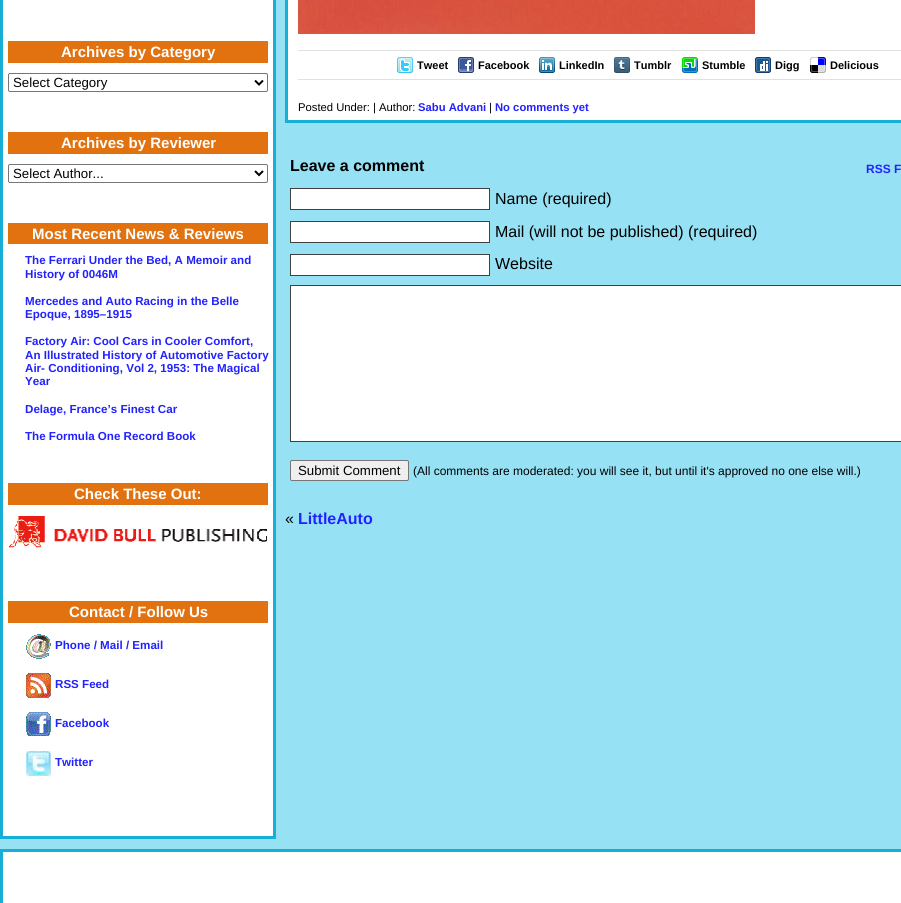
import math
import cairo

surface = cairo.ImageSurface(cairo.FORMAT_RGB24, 901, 903)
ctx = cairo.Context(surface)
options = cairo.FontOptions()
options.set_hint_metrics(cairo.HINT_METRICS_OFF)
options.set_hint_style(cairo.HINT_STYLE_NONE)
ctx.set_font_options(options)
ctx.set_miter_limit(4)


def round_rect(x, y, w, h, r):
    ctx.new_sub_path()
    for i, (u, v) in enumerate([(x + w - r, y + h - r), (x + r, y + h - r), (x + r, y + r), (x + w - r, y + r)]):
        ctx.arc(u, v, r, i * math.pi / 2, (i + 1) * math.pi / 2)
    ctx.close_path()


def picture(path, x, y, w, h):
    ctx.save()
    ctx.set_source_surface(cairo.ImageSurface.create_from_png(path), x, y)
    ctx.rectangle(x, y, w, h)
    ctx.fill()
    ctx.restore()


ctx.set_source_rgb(0.588, 0.882, 0.957)
ctx.paint()
ctx.set_source_rgb(1, 1, 1)
ctx.rectangle(1.5, -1.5, 273, 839)
ctx.fill_preserve()
ctx.set_source_rgb(0.09, 0.686, 0.835)
ctx.set_line_width(3)
ctx.stroke()
ctx.set_source_rgb(0.882, 0.447, 0.059)
ctx.rectangle(8, 41, 260, 22)
ctx.fill()
ctx.select_font_face("Liberation Sans", cairo.FONT_SLANT_NORMAL, cairo.FONT_WEIGHT_BOLD)
ctx.set_font_size(15)
ctx.set_source_rgb(1, 1, 1)
ctx.move_to(61, 57)
ctx.show_text("Archives by Category")
round_rect(8.5, 73.5, 259, 18, 1.5)
ctx.set_source_rgb(0.463, 0.463, 0.463)
ctx.set_line_width(1)
ctx.stroke()
ctx.new_path()
ctx.move_to(255, 80.5)
ctx.line_to(259, 84.5)
ctx.line_to(263, 80.5)
ctx.set_source_rgb(0, 0, 0)
ctx.set_line_width(2)
ctx.stroke()
ctx.select_font_face("Liberation Sans")
ctx.set_font_size(13.25)
ctx.move_to(13, 87)
ctx.show_text("Select Category")
ctx.set_source_rgb(0.882, 0.447, 0.059)
ctx.rectangle(8, 132, 260, 22)
ctx.fill()
ctx.select_font_face("Liberation Sans", cairo.FONT_SLANT_NORMAL, cairo.FONT_WEIGHT_BOLD)
ctx.set_font_size(15)
ctx.set_source_rgb(1, 1, 1)
ctx.move_to(61, 148)
ctx.show_text("Archives by Reviewer")
round_rect(8.5, 164.5, 259, 18, 1.5)
ctx.set_source_rgb(0.463, 0.463, 0.463)
ctx.set_line_width(1)
ctx.stroke()
ctx.new_path()
ctx.move_to(255, 171)
ctx.line_to(259, 175)
ctx.line_to(263, 171)
ctx.set_source_rgb(0, 0, 0)
ctx.set_line_width(2)
ctx.stroke()
ctx.select_font_face("Liberation Sans")
ctx.set_font_size(13.25)
ctx.move_to(13, 178)
ctx.show_text("Select Author...")
ctx.set_source_rgb(0.882, 0.447, 0.059)
ctx.rectangle(8, 223, 260, 21)
ctx.fill()
ctx.select_font_face("Liberation Sans", cairo.FONT_SLANT_NORMAL, cairo.FONT_WEIGHT_BOLD)
ctx.set_font_size(15)
ctx.set_source_rgb(1, 1, 1)
ctx.move_to(32, 239)
ctx.show_text("Most Recent News & Reviews")
ctx.set_font_size(11.6)
ctx.set_source_rgb(0.133, 0.133, 1)
ctx.move_to(25, 264)
ctx.show_text("The Ferrari Under the Bed, A Memoir and")
ctx.move_to(25, 278)
ctx.show_text("History of 0046M")
ctx.move_to(25, 305)
ctx.show_text("Mercedes and Auto Racing in the Belle")
ctx.move_to(25, 318)
ctx.show_text("Epoque, 1895–1915")
ctx.move_to(25, 345)
ctx.show_text("Factory Air: Cool Cars in Cooler Comfort,")
ctx.move_to(25, 359)
ctx.show_text("An Illustrated History of Automotive Factory")
ctx.move_to(25, 372)
ctx.show_text("Air- Conditioning, Vol 2, 1953: The Magical")
ctx.move_to(25, 385)
ctx.show_text("Year")
ctx.move_to(25, 413)
ctx.show_text("Delage, France’s Finest Car")
ctx.move_to(25, 440)
ctx.show_text("The Formula One Record Book")
ctx.set_source_rgb(0.882, 0.447, 0.059)
ctx.rectangle(8, 483, 260, 22)
ctx.fill()
ctx.set_font_size(15)
ctx.set_source_rgb(1, 1, 1)
ctx.move_to(74, 499)
ctx.show_text("Check These Out:")
picture("img1.png", 9, 516, 258, 32)
ctx.set_source_rgb(0.882, 0.447, 0.059)
ctx.rectangle(8, 601, 260, 22)
ctx.fill()
ctx.set_source_rgb(1, 1, 1)
ctx.move_to(69, 617)
ctx.show_text("Contact / Follow Us")
picture("img2.png", 26, 634, 25, 25)
ctx.set_font_size(11.6)
ctx.set_source_rgb(0.133, 0.133, 1)
ctx.move_to(55, 649)
ctx.show_text("Phone / Mail / Email")
picture("img3.png", 26, 673, 25, 25)
ctx.move_to(55, 688)
ctx.show_text("RSS Feed")
picture("img4.png", 26, 712, 25, 24)
ctx.move_to(55, 727)
ctx.show_text("Facebook")
picture("img5.png", 26, 751, 25, 25)
ctx.move_to(55, 766)
ctx.show_text("Twitter")
ctx.set_source_rgb(1, 1, 1)
ctx.rectangle(288, 0, 613, 120)
ctx.fill()
ctx.set_source_rgb(0.09, 0.686, 0.835)
ctx.rectangle(285, 0, 3, 85)
ctx.fill()
picture("img6.png", 298, 0, 457, 34)
ctx.set_source_rgb(0.882, 0.882, 0.878)
ctx.rectangle(298, 50, 603, 1)
ctx.fill()
ctx.rectangle(298, 79, 603, 1)
ctx.fill()
picture("img7.png", 397, 57, 16, 16)
ctx.set_font_size(11)
ctx.set_source_rgb(0, 0, 0)
ctx.move_to(417, 69)
ctx.show_text("Tweet")
picture("img8.png", 458, 57, 16, 16)
ctx.move_to(478, 69)
ctx.show_text("Facebook")
picture("img9.png", 539, 57, 16, 16)
ctx.move_to(559, 69)
ctx.show_text("LinkedIn")
picture("img10.png", 614, 57, 16, 16)
ctx.move_to(634, 69)
ctx.show_text("Tumblr")
picture("img11.png", 682, 57, 16, 16)
ctx.move_to(702, 69)
ctx.show_text("Stumble")
picture("img12.png", 755, 57, 16, 16)
ctx.move_to(775, 69)
ctx.show_text("Digg")
picture("img13.png", 810, 57, 16, 16)
ctx.move_to(830, 69)
ctx.show_text("Delicious")
ctx.set_source_rgb(0.09, 0.686, 0.835)
ctx.rectangle(285, 120, 616, 3)
ctx.fill()
ctx.rectangle(285, 85, 3, 38)
ctx.fill()
ctx.select_font_face("Liberation Sans")
ctx.set_font_size(11.25)
ctx.set_source_rgb(0, 0, 0)
ctx.move_to(298, 111)
ctx.show_text("Posted Under: | Author:")
ctx.select_font_face("Liberation Sans", cairo.FONT_SLANT_NORMAL, cairo.FONT_WEIGHT_BOLD)
ctx.set_source_rgb(0.133, 0.133, 1)
ctx.move_to(418, 111)
ctx.show_text("Sabu Advani")
ctx.select_font_face("Liberation Sans")
ctx.set_source_rgb(0, 0, 0)
ctx.move_to(489, 111)
ctx.show_text("|")
ctx.select_font_face("Liberation Sans", cairo.FONT_SLANT_NORMAL, cairo.FONT_WEIGHT_BOLD)
ctx.set_source_rgb(0.133, 0.133, 1)
ctx.move_to(495, 111)
ctx.show_text("No comments yet")
ctx.set_font_size(16)
ctx.set_source_rgb(0, 0, 0)
ctx.move_to(290, 171)
ctx.show_text("Leave a comment")
ctx.set_font_size(12)
ctx.set_source_rgb(0.133, 0.133, 1)
ctx.move_to(866, 173)
ctx.show_text("RSS F")
ctx.set_source_rgb(1, 1, 1)
ctx.rectangle(290.5, 188.5, 199, 21)
ctx.fill_preserve()
ctx.set_source_rgb(0.251, 0.251, 0.251)
ctx.set_line_width(1)
ctx.stroke()
ctx.select_font_face("Liberation Sans")
ctx.set_font_size(16)
ctx.set_source_rgb(0, 0, 0)
ctx.move_to(495, 204)
ctx.show_text("Name (required)")
ctx.set_source_rgb(1, 1, 1)
ctx.rectangle(290.5, 221.5, 199, 21)
ctx.fill_preserve()
ctx.set_source_rgb(0.251, 0.251, 0.251)
ctx.stroke()
ctx.set_source_rgb(0, 0, 0)
ctx.move_to(495, 237)
ctx.show_text("Mail (will not be published) (required)")
ctx.set_source_rgb(1, 1, 1)
ctx.rectangle(290.5, 254.5, 199, 21)
ctx.fill_preserve()
ctx.set_source_rgb(0.251, 0.251, 0.251)
ctx.stroke()
ctx.set_source_rgb(0, 0, 0)
ctx.move_to(495, 269)
ctx.show_text("Website")
ctx.set_source_rgb(1, 1, 1)
ctx.rectangle(290.5, 285.5, 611, 156)
ctx.fill_preserve()
ctx.set_source_rgb(0.251, 0.251, 0.251)
ctx.stroke()
ctx.set_source_rgb(0.937, 0.937, 0.937)
round_rect(290.5, 460.5, 118, 20, 1.5)
ctx.fill_preserve()
ctx.set_source_rgb(0.463, 0.463, 0.463)
ctx.stroke()
ctx.set_font_size(13.25)
ctx.set_source_rgb(0, 0, 0)
ctx.move_to(298, 475)
ctx.show_text("Submit Comment")
ctx.set_font_size(12)
ctx.move_to(413, 475)
ctx.show_text("(All comments are moderated: you will see it, but until it's approved no one else will.)")
ctx.set_font_size(16)
ctx.move_to(285, 524)
ctx.show_text("«")
ctx.select_font_face("Liberation Sans", cairo.FONT_SLANT_NORMAL, cairo.FONT_WEIGHT_BOLD)
ctx.set_source_rgb(0.133, 0.133, 1)
ctx.move_to(298, 524)
ctx.show_text("LittleAuto")
ctx.set_source_rgb(1, 1, 1)
ctx.rectangle(1.5, 850.5, 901, 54)
ctx.fill_preserve()
ctx.set_source_rgb(0.09, 0.686, 0.835)
ctx.set_line_width(3)
ctx.stroke()
surface.write_to_png("page.png")
